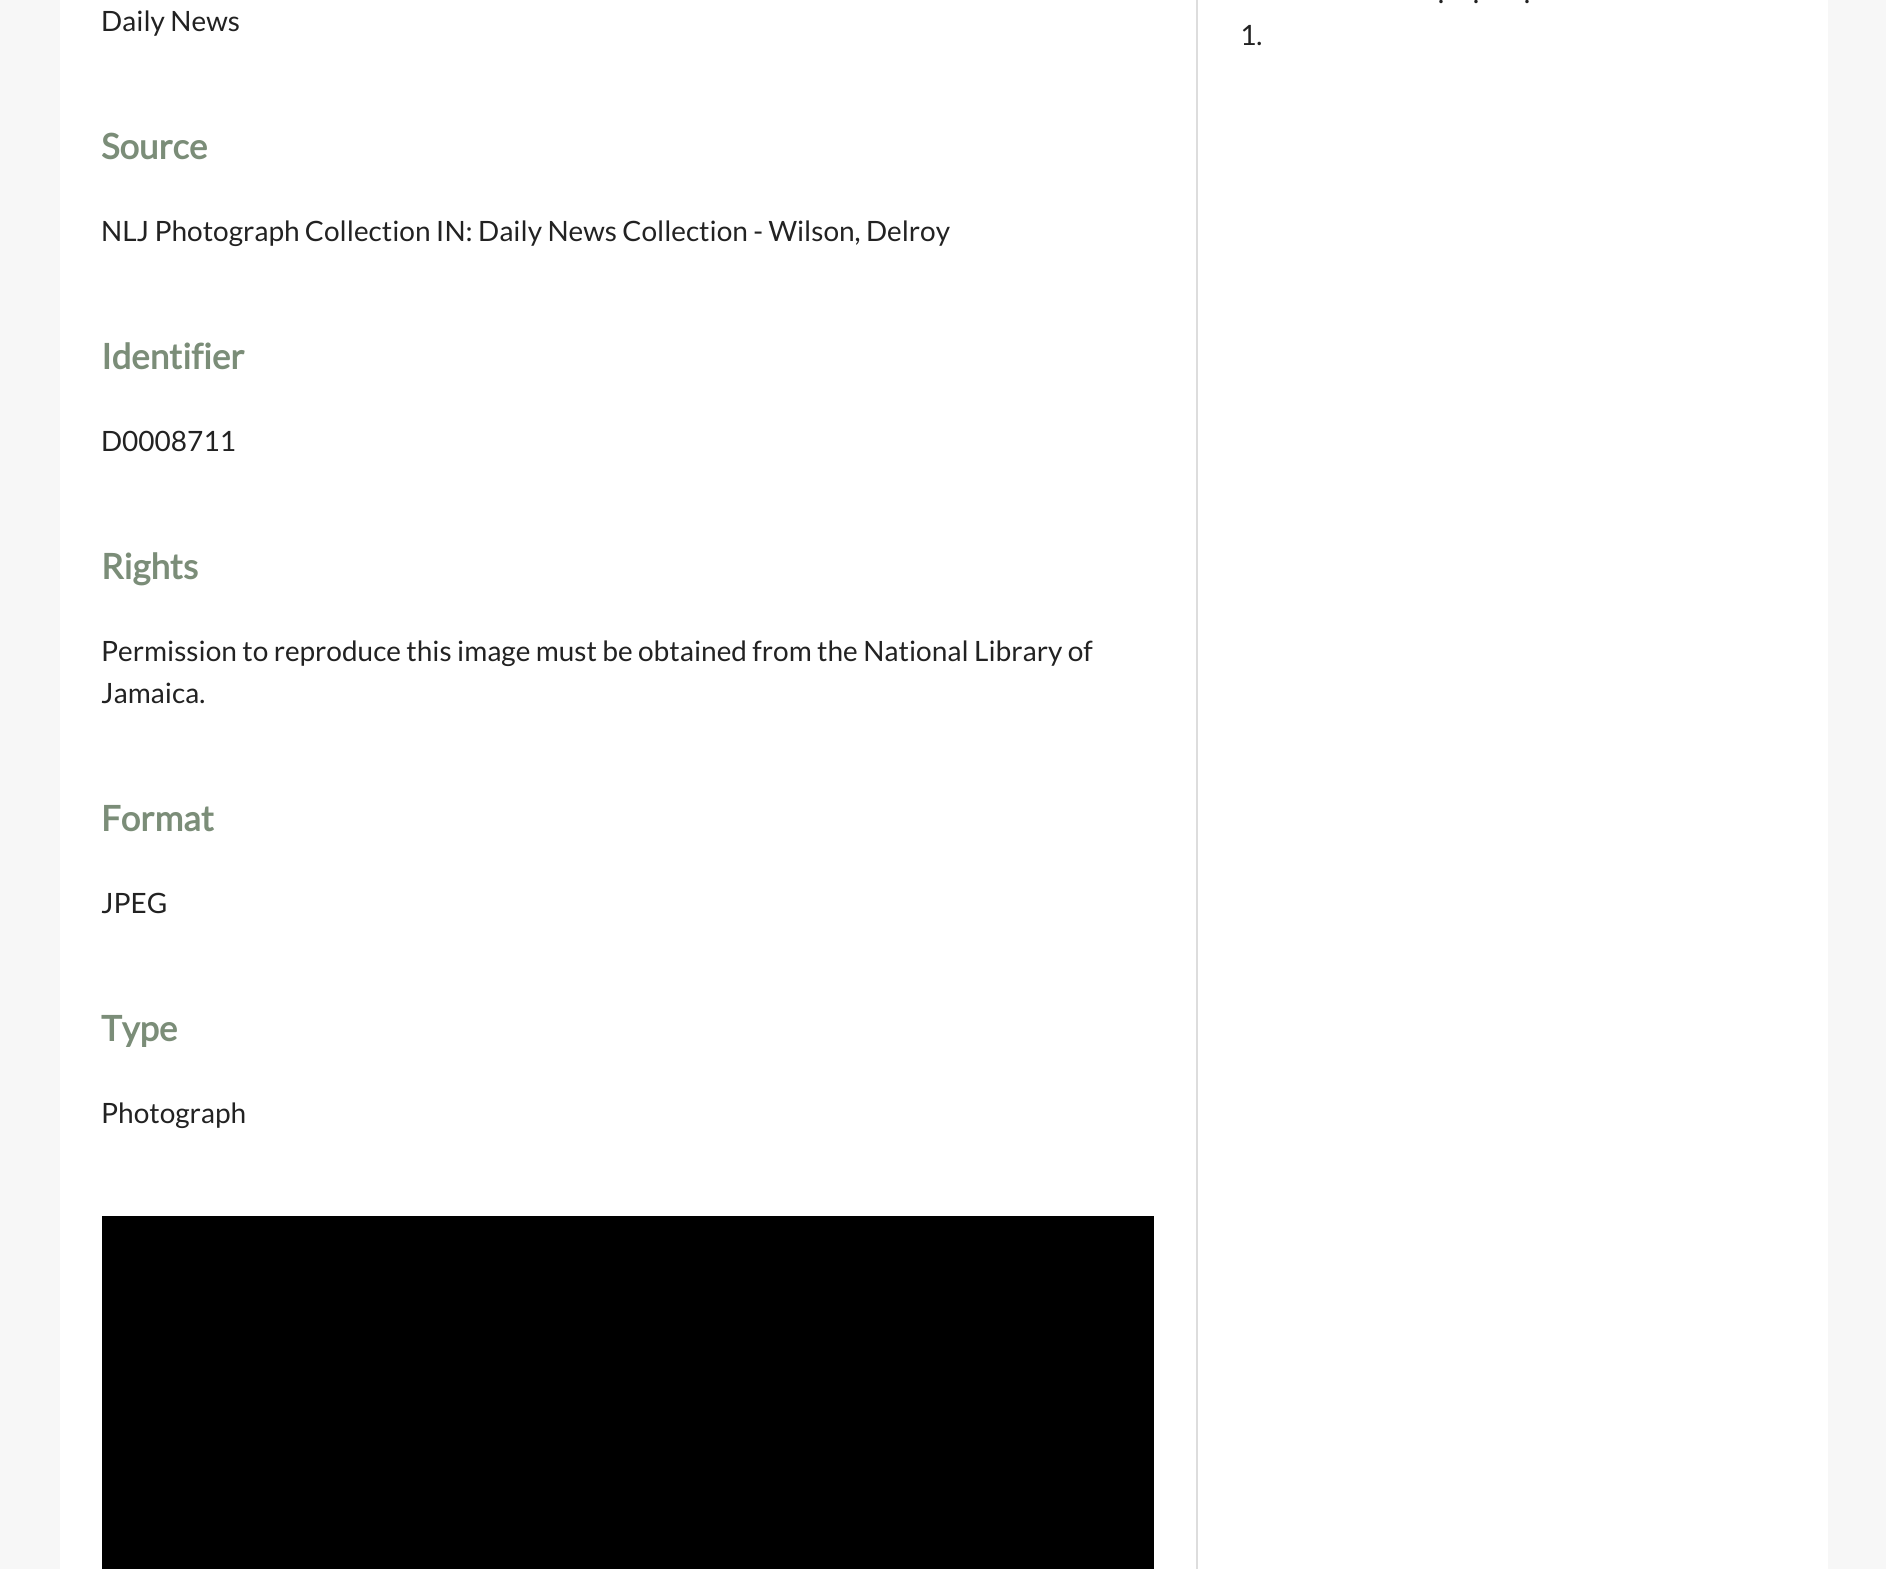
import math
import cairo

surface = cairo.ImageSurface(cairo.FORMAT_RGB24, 1886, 1569)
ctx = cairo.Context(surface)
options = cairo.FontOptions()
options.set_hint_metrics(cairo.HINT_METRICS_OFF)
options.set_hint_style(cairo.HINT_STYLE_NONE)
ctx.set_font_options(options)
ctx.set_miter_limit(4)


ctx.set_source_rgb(0.965, 0.965, 0.965)
ctx.paint()
ctx.set_source_rgb(1, 1, 1)
ctx.rectangle(60, 0, 1768, 1569)
ctx.fill()
ctx.select_font_face("Lato")
ctx.set_font_size(28)
ctx.set_source_rgb(0.133, 0.133, 0.133)
ctx.move_to(101, 31)
ctx.show_text("Daily News")
ctx.select_font_face("Lato", cairo.FONT_SLANT_NORMAL, cairo.FONT_WEIGHT_BOLD)
ctx.set_font_size(35)
ctx.set_source_rgb(0.482, 0.553, 0.471)
ctx.move_to(101, 159)
ctx.show_text("Source")
ctx.select_font_face("Lato")
ctx.set_font_size(28)
ctx.set_source_rgb(0.133, 0.133, 0.133)
ctx.move_to(101, 241)
ctx.show_text("NLJ Photograph Collection IN: Daily News Collection - Wilson, Delroy")
ctx.select_font_face("Lato", cairo.FONT_SLANT_NORMAL, cairo.FONT_WEIGHT_BOLD)
ctx.set_font_size(35)
ctx.set_source_rgb(0.482, 0.553, 0.471)
ctx.move_to(101, 369)
ctx.show_text("Identifier")
ctx.select_font_face("Lato")
ctx.set_font_size(28)
ctx.set_source_rgb(0.133, 0.133, 0.133)
ctx.move_to(101, 451)
ctx.show_text("D0008711")
ctx.select_font_face("Lato", cairo.FONT_SLANT_NORMAL, cairo.FONT_WEIGHT_BOLD)
ctx.set_font_size(35)
ctx.set_source_rgb(0.482, 0.553, 0.471)
ctx.move_to(101, 579)
ctx.show_text("Rights")
ctx.select_font_face("Lato")
ctx.set_font_size(28)
ctx.set_source_rgb(0.133, 0.133, 0.133)
ctx.move_to(101, 661)
ctx.show_text("Permission to reproduce this image must be obtained from the National Library of")
ctx.move_to(101, 703)
ctx.show_text("Jamaica.")
ctx.select_font_face("Lato", cairo.FONT_SLANT_NORMAL, cairo.FONT_WEIGHT_BOLD)
ctx.set_font_size(35)
ctx.set_source_rgb(0.482, 0.553, 0.471)
ctx.move_to(101, 831)
ctx.show_text("Format")
ctx.select_font_face("Lato")
ctx.set_font_size(28)
ctx.set_source_rgb(0.133, 0.133, 0.133)
ctx.move_to(101, 913)
ctx.show_text("JPEG")
ctx.select_font_face("Lato", cairo.FONT_SLANT_NORMAL, cairo.FONT_WEIGHT_BOLD)
ctx.set_font_size(35)
ctx.set_source_rgb(0.482, 0.553, 0.471)
ctx.move_to(101, 1041)
ctx.show_text("Type")
ctx.select_font_face("Lato")
ctx.set_font_size(28)
ctx.set_source_rgb(0.133, 0.133, 0.133)
ctx.move_to(101, 1123)
ctx.show_text("Photograph")
ctx.set_source_rgb(0.867, 0.867, 0.867)
ctx.rectangle(1196, 0, 2, 1569)
ctx.fill()
ctx.set_source_rgb(0, 0, 0)
ctx.rectangle(102, 1216, 1052, 353)
ctx.fill()
ctx.set_source_rgb(0.133, 0.133, 0.133)
ctx.move_to(1438, 3)
ctx.show_text(".")
ctx.move_to(1473, 3)
ctx.show_text(".")
ctx.move_to(1524, 3)
ctx.show_text(".")
ctx.move_to(1240, 45)
ctx.show_text("1.")
surface.write_to_png("page.png")
